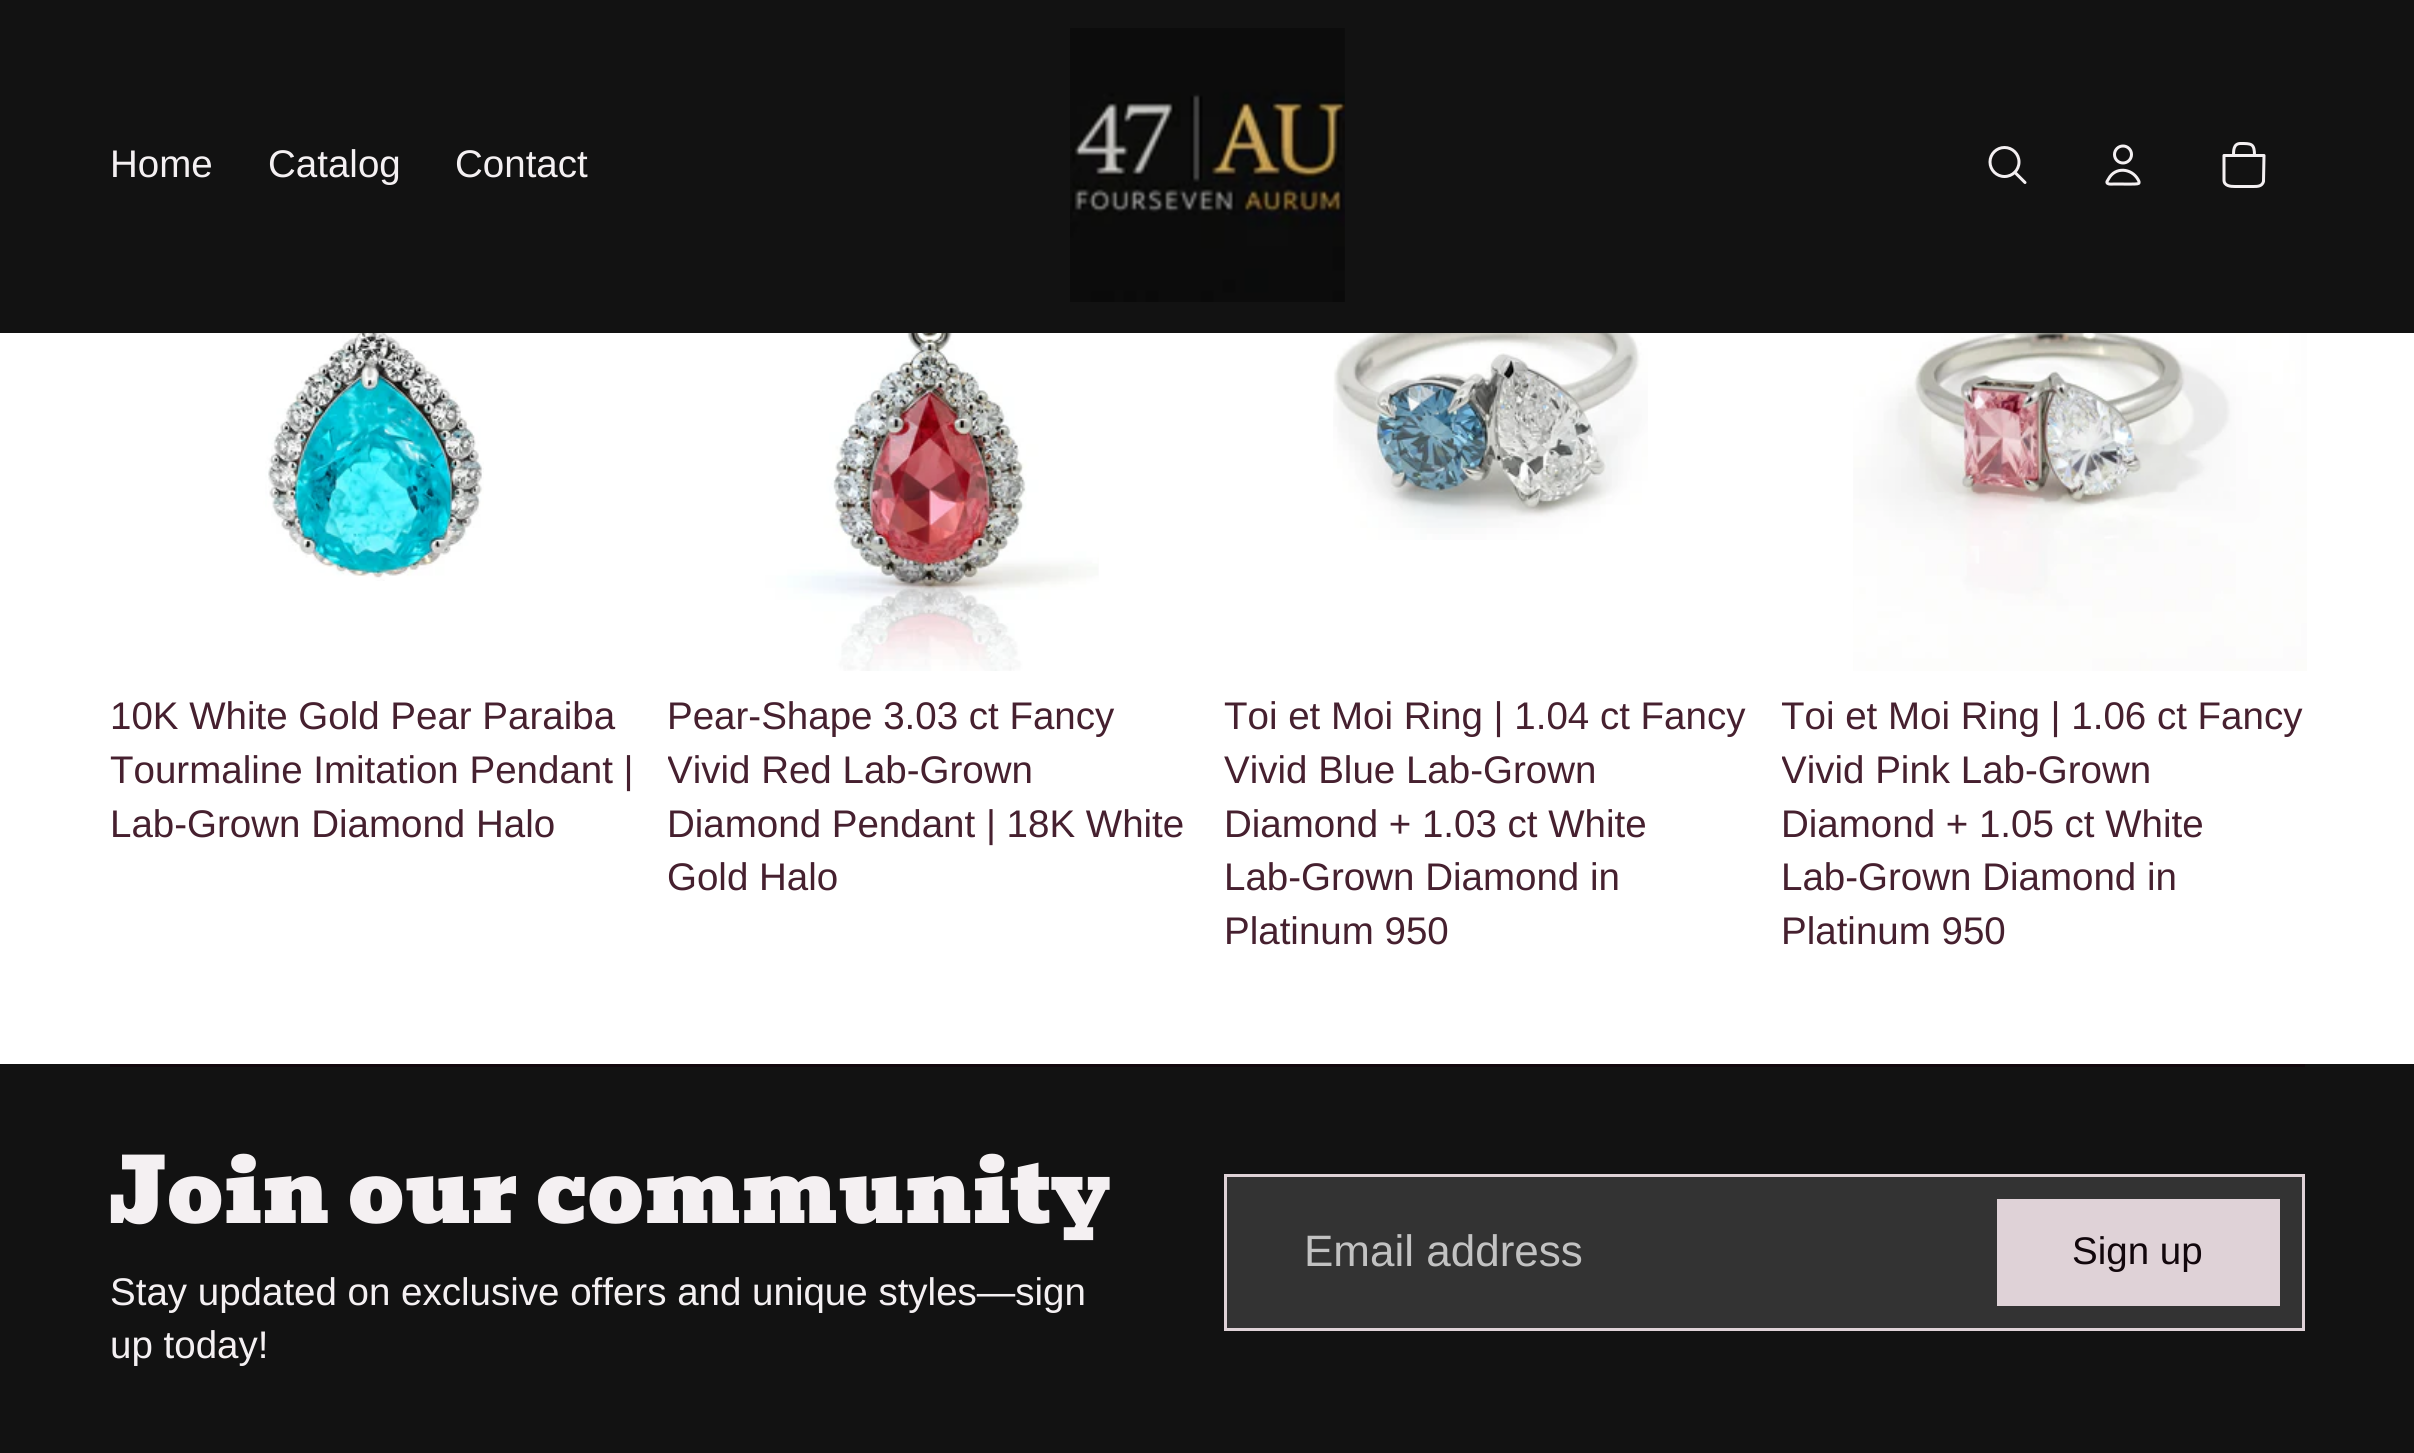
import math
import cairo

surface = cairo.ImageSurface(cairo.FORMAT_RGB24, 2414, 1453)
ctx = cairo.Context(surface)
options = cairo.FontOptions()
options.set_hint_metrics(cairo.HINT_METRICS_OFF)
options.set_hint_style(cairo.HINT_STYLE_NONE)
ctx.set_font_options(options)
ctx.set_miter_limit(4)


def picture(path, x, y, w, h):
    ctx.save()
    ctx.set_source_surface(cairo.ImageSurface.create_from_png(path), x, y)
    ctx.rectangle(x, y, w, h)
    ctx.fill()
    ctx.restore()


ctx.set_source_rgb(1, 1, 1)
ctx.paint()
ctx.set_source_rgb(0.071, 0.071, 0.071)
ctx.rectangle(0, 0, 2414, 333)
ctx.fill()
ctx.select_font_face("Arimo")
ctx.set_font_size(38.5)
ctx.set_source_rgb(0.957, 0.941, 0.949)
ctx.move_to(110, 177)
ctx.show_text("Home")
ctx.move_to(268, 177)
ctx.show_text("Catalog")
ctx.move_to(455, 177)
ctx.show_text("Contact")
picture("img1.png", 1070, 28, 275, 274)
ctx.arc(2004.5, 162, 14.5, 0, 2 * math.pi)
ctx.set_line_width(3)
ctx.stroke()
ctx.new_path()
ctx.move_to(2015, 172.5)
ctx.line_to(2025, 182.5)
ctx.set_line_cap(cairo.LINE_CAP_ROUND)
ctx.set_line_join(cairo.LINE_JOIN_ROUND)
ctx.stroke()
ctx.arc(2123, 154.5, 8.5, 0, 2 * math.pi)
ctx.set_line_cap(cairo.LINE_CAP_BUTT)
ctx.set_line_join(cairo.LINE_JOIN_MITER)
ctx.stroke()
ctx.new_path()
ctx.move_to(2108.5, 179)
ctx.line_to(2107, 181.5)
ctx.curve_to(2106, 185, 2113, 184, 2113.5, 184)
ctx.line_to(2118, 184)
ctx.curve_to(2121, 184, 2137, 184.5, 2138.5, 183.5)
ctx.line_to(2139, 183)
ctx.curve_to(2139.5, 182, 2138.5, 180.5, 2138, 179.5)
ctx.curve_to(2131.5, 168, 2115, 166.5, 2108.5, 179)
ctx.set_line_cap(cairo.LINE_CAP_ROUND)
ctx.set_line_join(cairo.LINE_JOIN_ROUND)
ctx.stroke()
ctx.new_path()
ctx.move_to(2224, 155.5)
ctx.line_to(2264, 155.5)
ctx.line_to(2263.5, 181.5)
ctx.curve_to(2262, 186.5, 2257.5, 186.5, 2253, 186.5)
ctx.line_to(2235, 186.5)
ctx.curve_to(2230.5, 186.5, 2224, 186, 2224, 180)
ctx.close_path()
ctx.move_to(2240.5, 143.5)
ctx.curve_to(2251.5, 143.5, 2254.5, 143.5, 2254.5, 155.5)
ctx.line_to(2233.5, 155.5)
ctx.curve_to(2233.5, 150.5, 2233.5, 143.5, 2240.5, 143.5)
ctx.stroke()
picture("img2.png", 263, 333, 221, 248)
ctx.set_source_rgb(0.275, 0.125, 0.184)
ctx.move_to(110, 729)
ctx.show_text("10K White Gold Pear Paraiba")
ctx.move_to(110, 783)
ctx.show_text("Tourmaline Imitation Pendant |")
ctx.move_to(110, 837)
ctx.show_text("Lab-Grown Diamond Halo")
picture("img3.png", 765, 333, 334, 338)
ctx.move_to(667, 729)
ctx.show_text("Pear-Shape 3.03 ct Fancy")
ctx.save()
ctx.rectangle(668, 146, 523, 825)
ctx.clip()
ctx.move_to(667, 783)
ctx.show_text("Vivid Red Lab-Grown")
ctx.restore()
ctx.move_to(667, 837)
ctx.show_text("Diamond Pendant | 18K White")
ctx.move_to(667, 890)
ctx.show_text("Gold Halo")
picture("img4.png", 1333, 333, 315, 207)
ctx.move_to(1224, 729)
ctx.show_text("Toi et Moi Ring | 1.04 ct Fancy")
ctx.move_to(1224, 783)
ctx.show_text("Vivid Blue Lab-Grown")
ctx.move_to(1224, 837)
ctx.show_text("Diamond + 1.03 ct White")
ctx.move_to(1224, 890)
ctx.show_text("Lab-Grown Diamond in")
ctx.move_to(1224, 944)
ctx.show_text("Platinum 950")
picture("img5.png", 1853, 333, 454, 338)
ctx.save()
ctx.rectangle(1782, 146, 523, 825)
ctx.clip()
ctx.move_to(1781, 729)
ctx.show_text("Toi et Moi Ring | 1.06 ct Fancy")
ctx.move_to(1781, 783)
ctx.show_text("Vivid Pink Lab-Grown")
ctx.restore()
ctx.move_to(1781, 837)
ctx.show_text("Diamond + 1.05 ct White")
ctx.move_to(1781, 890)
ctx.show_text("Lab-Grown Diamond in")
ctx.move_to(1781, 944)
ctx.show_text("Platinum 950")
ctx.set_source_rgb(0.071, 0.071, 0.071)
ctx.rectangle(0, 1064, 2414, 389)
ctx.fill()
ctx.set_source_rgb(0.071, 0.031, 0.047)
ctx.rectangle(110, 1064, 2195, 3)
ctx.fill()
ctx.select_font_face("Bevan")
ctx.set_font_size(88)
ctx.set_source_rgb(0.957, 0.941, 0.949)
ctx.move_to(110, 1223)
ctx.show_text("Join our community")
ctx.select_font_face("Arimo")
ctx.set_font_size(38.5)
ctx.move_to(110, 1305)
ctx.show_text("Stay updated on exclusive offers and unique styles—sign")
ctx.move_to(110, 1358)
ctx.show_text("up today!")
ctx.set_source_rgb(0.2, 0.2, 0.2)
ctx.rectangle(1225.5, 1175.5, 1078, 154)
ctx.fill_preserve()
ctx.set_source_rgb(0.875, 0.824, 0.843)
ctx.set_line_cap(cairo.LINE_CAP_BUTT)
ctx.set_line_join(cairo.LINE_JOIN_MITER)
ctx.stroke()
ctx.set_font_size(44)
ctx.set_source_rgb(0.761, 0.761, 0.761)
ctx.move_to(1304, 1266)
ctx.show_text("Email address")
ctx.set_source_rgb(0.875, 0.824, 0.843)
ctx.rectangle(1997, 1199, 283, 107)
ctx.fill()
ctx.set_font_size(38.5)
ctx.set_source_rgb(0.071, 0.031, 0.047)
ctx.move_to(2072, 1264)
ctx.show_text("Sign up")
surface.write_to_png("page.png")
